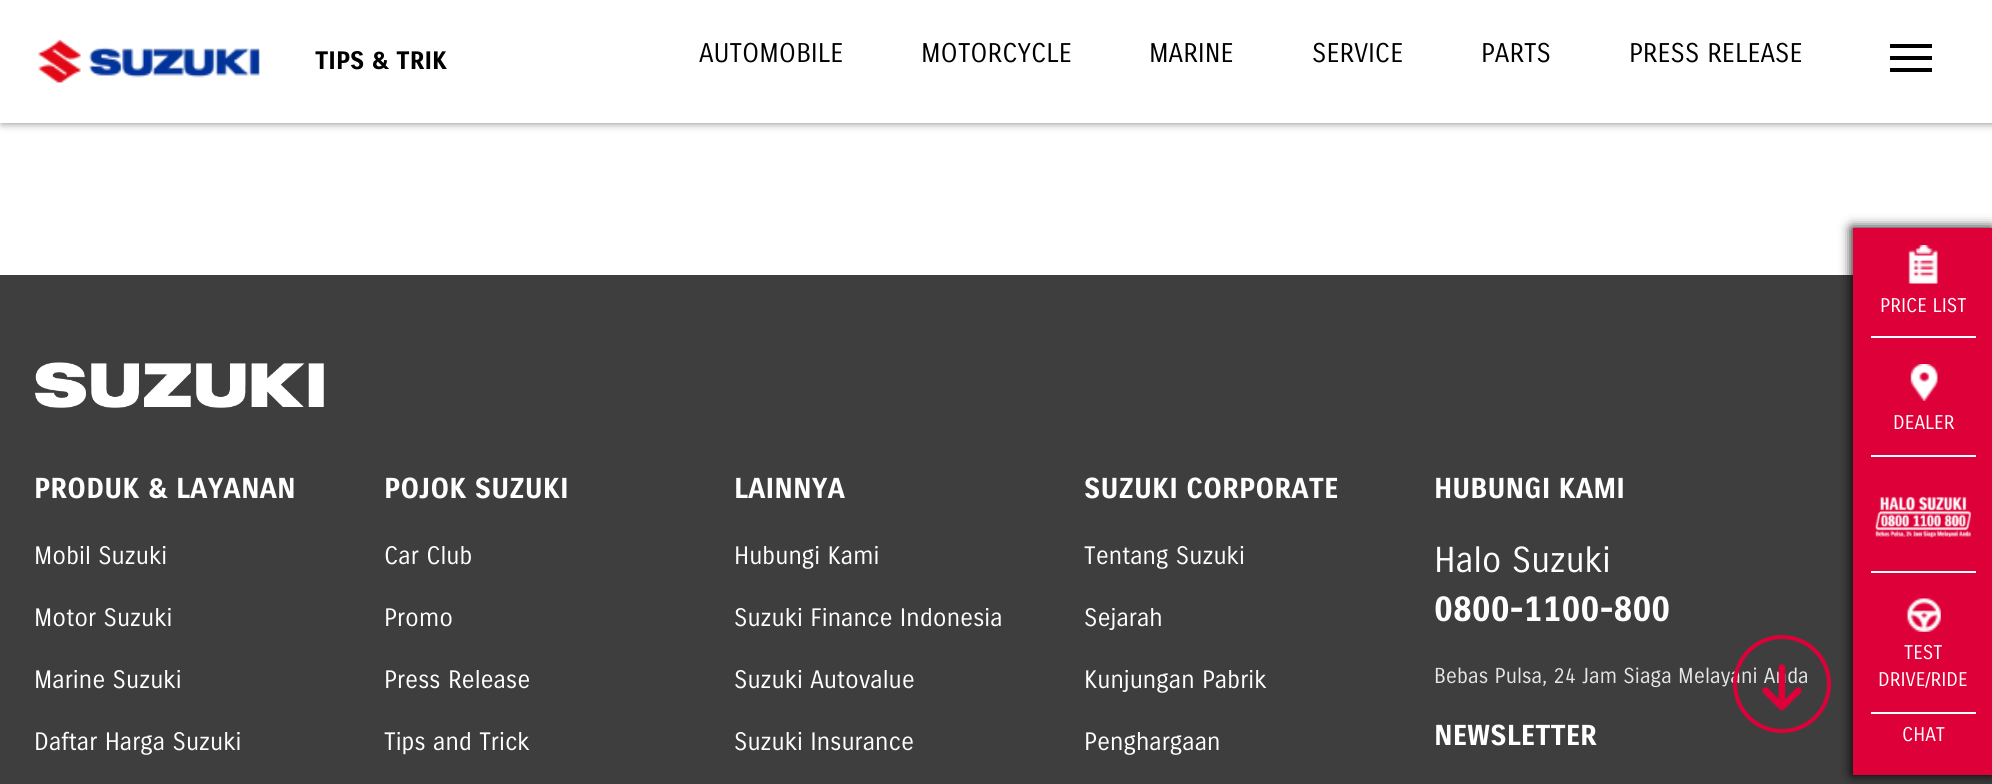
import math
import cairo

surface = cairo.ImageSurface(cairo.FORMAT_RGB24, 1992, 784)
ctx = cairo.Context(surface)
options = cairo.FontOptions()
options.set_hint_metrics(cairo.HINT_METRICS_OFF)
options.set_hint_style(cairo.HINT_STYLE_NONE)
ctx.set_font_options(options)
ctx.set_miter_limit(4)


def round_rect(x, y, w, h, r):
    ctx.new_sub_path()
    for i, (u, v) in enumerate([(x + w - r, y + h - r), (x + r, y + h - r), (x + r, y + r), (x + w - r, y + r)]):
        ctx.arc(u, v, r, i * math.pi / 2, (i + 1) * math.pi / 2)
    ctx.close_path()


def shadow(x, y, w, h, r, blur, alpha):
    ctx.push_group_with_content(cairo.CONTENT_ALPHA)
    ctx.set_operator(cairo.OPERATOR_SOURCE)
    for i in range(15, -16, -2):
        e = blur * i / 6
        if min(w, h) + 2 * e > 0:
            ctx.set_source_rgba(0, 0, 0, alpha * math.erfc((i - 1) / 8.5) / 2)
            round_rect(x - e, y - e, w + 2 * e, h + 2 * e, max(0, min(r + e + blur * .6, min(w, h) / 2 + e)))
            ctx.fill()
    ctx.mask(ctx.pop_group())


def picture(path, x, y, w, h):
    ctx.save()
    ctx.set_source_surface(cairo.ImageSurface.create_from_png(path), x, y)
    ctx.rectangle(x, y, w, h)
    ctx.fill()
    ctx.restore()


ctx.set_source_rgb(1, 1, 1)
ctx.paint()
ctx.set_source_rgb(0, 0, 0)
shadow(2, 0, 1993, 123, 0, 4.5, 0.5)
ctx.set_source_rgb(1, 1, 1)
ctx.rectangle(0, 0, 1992, 123)
ctx.fill()
picture("img1.png", 38, 39, 222, 44)
ctx.select_font_face("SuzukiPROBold", cairo.FONT_SLANT_NORMAL, cairo.FONT_WEIGHT_BOLD)
ctx.set_font_size(24.5)
ctx.set_source_rgb(0, 0, 0)
ctx.move_to(315, 69)
ctx.show_text("TIPS & TRIK")
ctx.select_font_face("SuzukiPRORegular")
ctx.set_font_size(26.25)
ctx.move_to(699, 62)
ctx.show_text("AUTOMOBILE")
ctx.move_to(921, 62)
ctx.show_text("MOTORCYCLE")
ctx.move_to(1149, 62)
ctx.show_text("MARINE")
ctx.move_to(1312, 62)
ctx.show_text("SERVICE")
ctx.move_to(1481, 62)
ctx.show_text("PARTS")
ctx.move_to(1629, 62)
ctx.show_text("PRESS RELEASE")
ctx.rectangle(1890, 44, 42, 4)
ctx.fill()
ctx.rectangle(1890, 56, 42, 4)
ctx.fill()
ctx.rectangle(1890, 68, 42, 4)
ctx.fill()
ctx.set_source_rgb(0.243, 0.243, 0.247)
ctx.rectangle(0, 275, 1992, 509)
ctx.fill()
ctx.set_font_size(21)
ctx.set_source_rgb(0.898, 0.898, 0.898)
ctx.move_to(1434, 683)
ctx.show_text("Bebas Pulsa, 24 Jam Siaga Melayani Anda")
ctx.new_path()
ctx.arc(1782, 684, 47, 0, 2 * math.pi)
ctx.set_source_rgb(0.871, 0, 0.224)
ctx.set_line_width(4)
ctx.stroke()
picture("img2.png", 1762, 664, 40, 47)
picture("img3.png", 35, 362, 289, 46)
ctx.select_font_face("SuzukiPROBold", cairo.FONT_SLANT_NORMAL, cairo.FONT_WEIGHT_BOLD)
ctx.set_font_size(28)
ctx.set_source_rgb(1, 1, 1)
ctx.move_to(34, 498)
ctx.show_text("PRODUK & LAYANAN")
ctx.select_font_face("SuzukiPRORegular")
ctx.set_font_size(24.5)
ctx.move_to(34, 564)
ctx.show_text("Mobil Suzuki")
ctx.move_to(34, 626)
ctx.show_text("Motor Suzuki")
ctx.move_to(34, 688)
ctx.show_text("Marine Suzuki")
ctx.move_to(34, 750)
ctx.show_text("Daftar Harga Suzuki")
ctx.select_font_face("SuzukiPROBold", cairo.FONT_SLANT_NORMAL, cairo.FONT_WEIGHT_BOLD)
ctx.set_font_size(28)
ctx.move_to(384, 498)
ctx.show_text("POJOK SUZUKI")
ctx.select_font_face("SuzukiPRORegular")
ctx.set_font_size(24.5)
ctx.move_to(384, 564)
ctx.show_text("Car Club")
ctx.move_to(384, 626)
ctx.show_text("Promo")
ctx.move_to(384, 688)
ctx.show_text("Press Release")
ctx.move_to(384, 750)
ctx.show_text("Tips and Trick")
ctx.select_font_face("SuzukiPROBold", cairo.FONT_SLANT_NORMAL, cairo.FONT_WEIGHT_BOLD)
ctx.set_font_size(28)
ctx.move_to(734, 498)
ctx.show_text("LAINNYA")
ctx.select_font_face("SuzukiPRORegular")
ctx.set_font_size(24.5)
ctx.move_to(734, 564)
ctx.show_text("Hubungi Kami")
ctx.move_to(734, 626)
ctx.show_text("Suzuki Finance Indonesia")
ctx.move_to(734, 688)
ctx.show_text("Suzuki Autovalue")
ctx.move_to(734, 750)
ctx.show_text("Suzuki Insurance")
ctx.select_font_face("SuzukiPROBold", cairo.FONT_SLANT_NORMAL, cairo.FONT_WEIGHT_BOLD)
ctx.set_font_size(28)
ctx.move_to(1084, 498)
ctx.show_text("SUZUKI CORPORATE")
ctx.select_font_face("SuzukiPRORegular")
ctx.set_font_size(24.5)
ctx.move_to(1084, 564)
ctx.show_text("Tentang Suzuki")
ctx.move_to(1084, 626)
ctx.show_text("Sejarah")
ctx.move_to(1084, 688)
ctx.show_text("Kunjungan Pabrik")
ctx.move_to(1084, 750)
ctx.show_text("Penghargaan")
ctx.select_font_face("SuzukiPROBold", cairo.FONT_SLANT_NORMAL, cairo.FONT_WEIGHT_BOLD)
ctx.set_font_size(28)
ctx.move_to(1434, 498)
ctx.show_text("HUBUNGI KAMI")
ctx.select_font_face("SuzukiPRORegular")
ctx.set_font_size(35)
ctx.move_to(1434, 572)
ctx.show_text("Halo Suzuki")
ctx.select_font_face("SuzukiPROBold", cairo.FONT_SLANT_NORMAL, cairo.FONT_WEIGHT_BOLD)
ctx.move_to(1434, 621)
ctx.show_text("0800-1100-800")
ctx.set_font_size(28)
ctx.move_to(1434, 745)
ctx.show_text("NEWSLETTER")
ctx.set_source_rgb(0, 0, 0)
shadow(1852, 228, 140, 547, 0, 6, 1)
ctx.set_source_rgb(0.871, 0, 0.224)
ctx.rectangle(1853, 228, 139, 547)
ctx.fill()
picture("img4.png", 1908, 245, 30, 39)
ctx.select_font_face("SuzukiPRORegular")
ctx.set_font_size(19.25)
ctx.set_source_rgb(1, 1, 1)
ctx.move_to(1880, 312)
ctx.show_text("PRICE LIST")
ctx.rectangle(1871, 336, 105, 2)
ctx.fill()
picture("img5.png", 1910, 364, 28, 37)
ctx.move_to(1893, 429)
ctx.show_text("DEALER")
ctx.rectangle(1871, 455, 105, 2)
ctx.fill()
picture("img6.png", 1875, 496, 96, 42)
ctx.rectangle(1871, 571, 105, 2)
ctx.fill()
picture("img7.png", 1906, 598, 35, 34)
ctx.move_to(1904, 659)
ctx.show_text("TEST")
ctx.move_to(1878, 686)
ctx.show_text("DRIVE/RIDE")
ctx.rectangle(1871, 712, 105, 2)
ctx.fill()
ctx.move_to(1902, 741)
ctx.show_text("CHAT")
surface.write_to_png("page.png")
